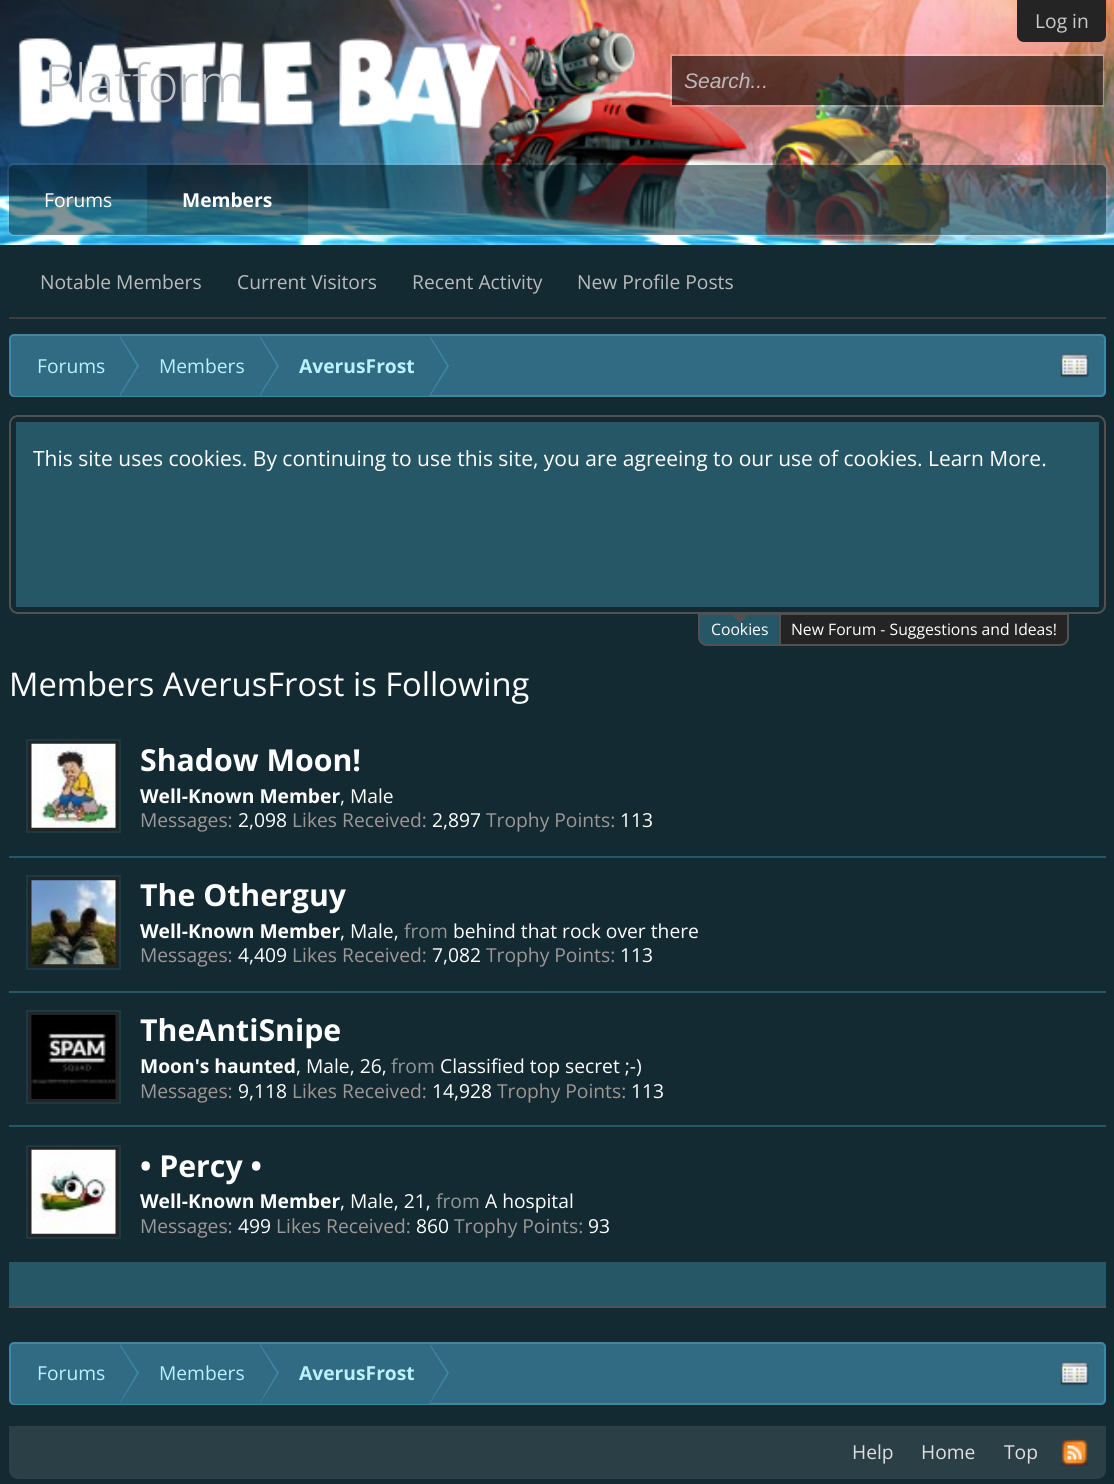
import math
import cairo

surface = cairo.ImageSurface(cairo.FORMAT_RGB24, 1114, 1484)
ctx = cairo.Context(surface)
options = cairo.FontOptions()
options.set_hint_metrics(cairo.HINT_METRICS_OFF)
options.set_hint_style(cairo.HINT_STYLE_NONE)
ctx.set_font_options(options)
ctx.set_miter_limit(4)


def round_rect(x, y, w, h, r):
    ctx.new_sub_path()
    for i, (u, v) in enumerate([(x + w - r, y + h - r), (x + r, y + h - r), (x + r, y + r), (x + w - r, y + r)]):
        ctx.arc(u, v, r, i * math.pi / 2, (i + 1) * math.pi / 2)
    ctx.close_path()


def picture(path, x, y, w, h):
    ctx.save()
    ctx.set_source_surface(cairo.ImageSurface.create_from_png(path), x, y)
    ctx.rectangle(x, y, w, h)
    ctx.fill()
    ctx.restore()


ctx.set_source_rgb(0.075, 0.165, 0.196)
ctx.paint()
picture("img1.png", 0, 0, 1114, 245)
ctx.set_source_rgb(0.141, 0.141, 0.141)
ctx.new_path()
ctx.move_to(1017, 0)
ctx.line_to(1106, 0)
ctx.line_to(1106, 35)
ctx.curve_to(1106, 39, 1103, 42, 1099, 42)
ctx.line_to(1024, 42)
ctx.curve_to(1020, 42, 1017, 39, 1017, 35)
ctx.close_path()
ctx.fill()
ctx.select_font_face("Open Sans")
ctx.set_font_size(19.25)
ctx.set_source_rgb(0.796, 0.796, 0.796)
ctx.move_to(1035, 28)
ctx.show_text("Log in")
ctx.set_source_rgba(1, 1, 1, 0.2)
ctx.rectangle(0, 243, 1114, 2)
ctx.fill()
picture("img2.png", 18, 38, 483, 91)
ctx.select_font_face("Open Sans Light")
ctx.set_font_size(52.5)
ctx.set_source_rgb(0.725, 0.741, 0.765)
ctx.move_to(44, 102)
ctx.show_text("Platform")
ctx.rectangle(671, 55, 432, 51)
ctx.set_source_rgba(1, 1, 1, 0.2)
ctx.stroke()
ctx.set_source_rgba(0, 0, 0, 0.6)
ctx.rectangle(672, 56, 431, 49)
ctx.fill()
ctx.select_font_face("Liberation Sans", cairo.FONT_SLANT_ITALIC)
ctx.set_font_size(21)
ctx.set_source_rgb(0.733, 0.733, 0.733)
ctx.move_to(684, 88)
ctx.show_text("Search...")
round_rect(8, 164, 1099, 71, 6)
ctx.set_source_rgba(1, 1, 1, 0.07)
ctx.stroke()
ctx.set_source_rgba(1, 1, 1, 0.15)
ctx.new_path()
ctx.move_to(9, 231)
ctx.curve_to(9, 234, 11, 236, 14, 236)
ctx.line_to(1101, 236)
ctx.curve_to(1104, 236, 1106, 234, 1106, 231)
ctx.line_to(1106, 229)
ctx.curve_to(1106, 232, 1104, 234, 1101, 234)
ctx.line_to(14, 234)
ctx.curve_to(12, 234, 10, 233, 9, 231)
ctx.close_path()
ctx.fill()
ctx.set_source_rgba(0.031, 0.173, 0.216, 0.5)
round_rect(9, 165, 1097, 70, 5)
ctx.fill()
gradient = cairo.LinearGradient(557, 164, 557, 235)
gradient.add_color_stop_rgba(0, 0, 0, 0, 0.1)
gradient.add_color_stop_rgba(1, 0, 0, 0, 0)
ctx.set_source(gradient)
round_rect(9, 165, 1097, 70, 5)
ctx.fill()
ctx.set_source_rgba(0, 0, 0, 0.1)
ctx.rectangle(147, 165, 161, 70)
ctx.fill()
gradient = cairo.LinearGradient(228, 165, 228, 235)
gradient.add_color_stop_rgba(0, 0, 0, 0, 0.2)
gradient.add_color_stop_rgba(1, 0, 0, 0, 0)
ctx.set_source(gradient)
ctx.rectangle(147, 165, 161, 62)
ctx.fill()
ctx.select_font_face("Open Sans", cairo.FONT_SLANT_NORMAL, cairo.FONT_WEIGHT_BOLD)
ctx.set_font_size(19.25)
ctx.set_source_rgb(1, 1, 1)
ctx.move_to(182, 207)
ctx.show_text("Members")
ctx.set_source_rgb(0.243, 0.243, 0.243)
ctx.rectangle(9, 317, 1097, 2)
ctx.fill()
ctx.select_font_face("Open Sans")
ctx.set_source_rgb(0.733, 0.733, 0.733)
ctx.move_to(40, 289)
ctx.show_text("Notable Members")
ctx.move_to(237, 289)
ctx.show_text("Current Visitors")
ctx.move_to(412, 289)
ctx.show_text("Recent Activity")
ctx.move_to(577, 289)
ctx.show_text("New Profile Posts")
ctx.set_source_rgb(1, 1, 1)
ctx.move_to(44, 207)
ctx.show_text("Forums")
ctx.set_source_rgb(0.192, 0.42, 0.514)
round_rect(10, 335, 1095, 61, 4)
ctx.fill_preserve()
ctx.set_source_rgb(0.243, 0.533, 0.655)
ctx.stroke()
ctx.save()
round_rect(11, 336, 1093, 60, 4)
ctx.clip()
ctx.set_source_rgb(0.192, 0.42, 0.514)
ctx.new_path()
ctx.move_to(18, 336)
ctx.line_to(119, 336)
ctx.line_to(119, 397)
ctx.line_to(18, 397)
ctx.curve_to(14, 397, 11, 394, 11, 390)
ctx.line_to(11, 343)
ctx.curve_to(11, 339, 14, 336, 18, 336)
ctx.close_path()
ctx.fill()
ctx.restore()
ctx.set_source_rgb(0.733, 0.941, 1)
ctx.move_to(37, 373)
ctx.show_text("Forums")
ctx.set_source_rgb(0.192, 0.42, 0.514)
ctx.rectangle(119, 395, 139, 1)
ctx.fill()
ctx.set_source_rgb(0.243, 0.533, 0.655)
ctx.new_path()
ctx.move_to(120, 396)
ctx.line_to(120, 336)
ctx.line_to(139, 366)
ctx.close_path()
ctx.fill()
ctx.set_source_rgb(0.192, 0.42, 0.514)
ctx.new_path()
ctx.move_to(119, 336)
ctx.line_to(137, 366)
ctx.line_to(119, 396)
ctx.line_to(118, 396)
ctx.line_to(118, 336)
ctx.close_path()
ctx.fill()
ctx.set_source_rgb(0.733, 0.941, 1)
ctx.move_to(159, 373)
ctx.show_text("Members")
ctx.set_source_rgb(0.192, 0.42, 0.514)
ctx.rectangle(259, 395, 169, 1)
ctx.fill()
ctx.set_source_rgb(0.243, 0.533, 0.655)
ctx.new_path()
ctx.move_to(260, 396)
ctx.line_to(260, 336)
ctx.line_to(279, 366)
ctx.close_path()
ctx.fill()
ctx.set_source_rgb(0.192, 0.42, 0.514)
ctx.new_path()
ctx.move_to(259, 336)
ctx.line_to(277, 366)
ctx.line_to(259, 396)
ctx.line_to(258, 396)
ctx.line_to(258, 336)
ctx.close_path()
ctx.fill()
ctx.select_font_face("Open Sans", cairo.FONT_SLANT_NORMAL, cairo.FONT_WEIGHT_BOLD)
ctx.set_source_rgb(0.733, 0.941, 1)
ctx.move_to(299, 373)
ctx.show_text("AverusFrost")
ctx.set_source_rgb(0.243, 0.533, 0.655)
ctx.new_path()
ctx.move_to(430, 396)
ctx.line_to(430, 336)
ctx.line_to(449, 366)
ctx.close_path()
ctx.fill()
ctx.set_source_rgb(0.192, 0.42, 0.514)
ctx.new_path()
ctx.move_to(429, 336)
ctx.line_to(447, 366)
ctx.line_to(429, 396)
ctx.line_to(428, 396)
ctx.line_to(428, 336)
ctx.close_path()
ctx.fill()
picture("img3.png", 1060, 353, 29, 25)
round_rect(10, 416, 1095, 197, 8)
ctx.set_source_rgb(0.318, 0.318, 0.318)
ctx.stroke()
ctx.set_source_rgb(0.149, 0.341, 0.404)
ctx.rectangle(16, 422, 1083, 185)
ctx.fill()
ctx.select_font_face("Open Sans")
ctx.set_font_size(21)
ctx.set_source_rgb(1, 1, 1)
ctx.move_to(33, 466)
ctx.show_text("This site uses cookies. By continuing to use this site, you are agreeing to our use of cookies. Learn More.")
ctx.set_source_rgb(0.149, 0.341, 0.404)
ctx.new_path()
ctx.move_to(699, 614)
ctx.line_to(780, 614)
ctx.line_to(780, 645)
ctx.line_to(707, 645)
ctx.curve_to(702.5, 645, 699, 641.5, 699, 637)
ctx.close_path()
ctx.fill_preserve()
ctx.set_source_rgb(0.318, 0.318, 0.318)
ctx.stroke()
ctx.new_path()
ctx.move_to(731.5, 614)
ctx.line_to(749, 614)
ctx.line_to(740, 623)
ctx.close_path()
ctx.fill()
ctx.set_font_size(15.75)
ctx.set_source_rgb(1, 1, 1)
ctx.move_to(711, 635)
ctx.show_text("Cookies")
ctx.set_source_rgb(0.141, 0.141, 0.141)
ctx.new_path()
ctx.move_to(780, 614)
ctx.line_to(1068, 614)
ctx.line_to(1068, 637)
ctx.curve_to(1068, 641.5, 1064.5, 645, 1060, 645)
ctx.line_to(780, 645)
ctx.close_path()
ctx.fill_preserve()
ctx.set_source_rgb(0.318, 0.318, 0.318)
ctx.stroke()
ctx.set_source_rgb(1, 1, 1)
ctx.move_to(791, 635)
ctx.show_text("New Forum - Suggestions and Ideas!")
ctx.set_font_size(32.7)
ctx.move_to(9, 696)
ctx.show_text("Members AverusFrost is Following")
ctx.set_source_rgb(0.149, 0.341, 0.404)
ctx.rectangle(9, 856, 1097, 2)
ctx.fill()
ctx.set_source_rgb(0.141, 0.141, 0.141)
ctx.rectangle(28, 741, 91, 90)
ctx.fill()
picture("img4.png", 31, 743, 85, 85)
ctx.rectangle(27, 740, 93, 92)
ctx.set_source_rgb(0.106, 0.227, 0.267)
ctx.stroke()
ctx.select_font_face("Open Sans", cairo.FONT_SLANT_NORMAL, cairo.FONT_WEIGHT_BOLD)
ctx.set_font_size(30.25)
ctx.set_source_rgb(1, 1, 1)
ctx.move_to(140, 771)
ctx.show_text("Shadow Moon!")
ctx.set_font_size(19.25)
ctx.move_to(140, 803)
ctx.show_text("Well-Known Member")
ctx.select_font_face("Open Sans")
ctx.move_to(340, 803)
ctx.show_text(", Male")
ctx.set_source_rgb(0.624, 0.588, 0.588)
ctx.move_to(140, 827)
ctx.show_text("Messages:")
ctx.set_source_rgb(1, 1, 1)
ctx.move_to(238, 827)
ctx.show_text("2,098")
ctx.set_source_rgb(0.624, 0.588, 0.588)
ctx.move_to(292, 827)
ctx.show_text("Likes Received:")
ctx.set_source_rgb(1, 1, 1)
ctx.move_to(432, 827)
ctx.show_text("2,897")
ctx.set_source_rgb(0.624, 0.588, 0.588)
ctx.move_to(486, 827)
ctx.show_text("Trophy Points:")
ctx.set_source_rgb(1, 1, 1)
ctx.move_to(620, 827)
ctx.show_text("113")
ctx.set_source_rgb(0.149, 0.341, 0.404)
ctx.rectangle(9, 991, 1097, 2)
ctx.fill()
ctx.set_source_rgb(0.141, 0.141, 0.141)
ctx.rectangle(28, 877, 91, 91)
ctx.fill()
picture("img5.png", 31, 880, 85, 85)
ctx.rectangle(27, 876, 93, 93)
ctx.set_source_rgb(0.106, 0.227, 0.267)
ctx.stroke()
ctx.select_font_face("Open Sans", cairo.FONT_SLANT_NORMAL, cairo.FONT_WEIGHT_BOLD)
ctx.set_font_size(30.25)
ctx.set_source_rgb(1, 1, 1)
ctx.move_to(140, 906)
ctx.show_text("The Otherguy")
ctx.set_font_size(19.25)
ctx.move_to(140, 938)
ctx.show_text("Well-Known Member")
ctx.select_font_face("Open Sans")
ctx.move_to(340, 938)
ctx.show_text(", Male,")
ctx.set_source_rgb(0.588, 0.588, 0.588)
ctx.move_to(404, 938)
ctx.show_text("from")
ctx.set_source_rgb(1, 1, 1)
ctx.move_to(453, 938)
ctx.show_text("behind that rock over there")
ctx.set_source_rgb(0.624, 0.588, 0.588)
ctx.move_to(140, 962)
ctx.show_text("Messages:")
ctx.set_source_rgb(1, 1, 1)
ctx.move_to(238, 962)
ctx.show_text("4,409")
ctx.set_source_rgb(0.624, 0.588, 0.588)
ctx.move_to(292, 962)
ctx.show_text("Likes Received:")
ctx.set_source_rgb(1, 1, 1)
ctx.move_to(432, 962)
ctx.show_text("7,082")
ctx.set_source_rgb(0.624, 0.588, 0.588)
ctx.move_to(486, 962)
ctx.show_text("Trophy Points:")
ctx.set_source_rgb(1, 1, 1)
ctx.move_to(620, 962)
ctx.show_text("113")
ctx.set_source_rgb(0.149, 0.341, 0.404)
ctx.rectangle(9, 1125, 1097, 2)
ctx.fill()
ctx.set_source_rgb(0.141, 0.141, 0.141)
ctx.rectangle(28, 1012, 91, 90)
ctx.fill()
picture("img6.png", 31, 1015, 85, 84)
ctx.rectangle(27, 1011, 93, 92)
ctx.set_source_rgb(0.106, 0.227, 0.267)
ctx.stroke()
ctx.select_font_face("Open Sans", cairo.FONT_SLANT_NORMAL, cairo.FONT_WEIGHT_BOLD)
ctx.set_font_size(30.25)
ctx.set_source_rgb(1, 1, 1)
ctx.move_to(140, 1041)
ctx.show_text("TheAntiSnipe")
ctx.set_font_size(19.25)
ctx.move_to(140, 1073)
ctx.show_text("Moon's haunted")
ctx.select_font_face("Open Sans")
ctx.move_to(296, 1073)
ctx.show_text(", Male, 26,")
ctx.set_source_rgb(0.588, 0.588, 0.588)
ctx.move_to(391, 1073)
ctx.show_text("from")
ctx.set_source_rgb(1, 1, 1)
ctx.move_to(440, 1073)
ctx.show_text("Classified top secret ;-)")
ctx.set_source_rgb(0.624, 0.588, 0.588)
ctx.move_to(140, 1098)
ctx.show_text("Messages:")
ctx.set_source_rgb(1, 1, 1)
ctx.move_to(238, 1098)
ctx.show_text("9,118")
ctx.set_source_rgb(0.624, 0.588, 0.588)
ctx.move_to(292, 1098)
ctx.show_text("Likes Received:")
ctx.set_source_rgb(1, 1, 1)
ctx.move_to(432, 1098)
ctx.show_text("14,928")
ctx.set_source_rgb(0.624, 0.588, 0.588)
ctx.move_to(497, 1098)
ctx.show_text("Trophy Points:")
ctx.set_source_rgb(1, 1, 1)
ctx.move_to(631, 1098)
ctx.show_text("113")
ctx.set_source_rgb(0.149, 0.341, 0.404)
ctx.rectangle(9, 1262, 1097, 44)
ctx.fill()
ctx.set_source_rgb(0.141, 0.141, 0.141)
ctx.rectangle(28, 1147, 91, 90)
ctx.fill()
picture("img7.png", 31, 1149, 85, 85)
ctx.rectangle(27, 1146, 93, 92)
ctx.set_source_rgb(0.106, 0.227, 0.267)
ctx.stroke()
ctx.select_font_face("Open Sans", cairo.FONT_SLANT_NORMAL, cairo.FONT_WEIGHT_BOLD)
ctx.set_font_size(30.25)
ctx.set_source_rgb(1, 1, 1)
ctx.move_to(140, 1177)
ctx.show_text("• Percy •")
ctx.set_font_size(19.25)
ctx.move_to(140, 1208)
ctx.show_text("Well-Known Member")
ctx.select_font_face("Open Sans")
ctx.move_to(340, 1208)
ctx.show_text(", Male, 21,")
ctx.set_source_rgb(0.588, 0.588, 0.588)
ctx.move_to(436, 1208)
ctx.show_text("from")
ctx.set_source_rgb(1, 1, 1)
ctx.move_to(485, 1208)
ctx.show_text("A hospital")
ctx.set_source_rgb(0.624, 0.588, 0.588)
ctx.move_to(140, 1233)
ctx.show_text("Messages:")
ctx.set_source_rgb(1, 1, 1)
ctx.move_to(238, 1233)
ctx.show_text("499")
ctx.set_source_rgb(0.624, 0.588, 0.588)
ctx.move_to(276, 1233)
ctx.show_text("Likes Received:")
ctx.set_source_rgb(1, 1, 1)
ctx.move_to(416, 1233)
ctx.show_text("860")
ctx.set_source_rgb(0.624, 0.588, 0.588)
ctx.move_to(454, 1233)
ctx.show_text("Trophy Points:")
ctx.set_source_rgb(1, 1, 1)
ctx.move_to(588, 1233)
ctx.show_text("93")
ctx.set_source_rgb(0.318, 0.318, 0.318)
ctx.rectangle(9, 1306, 1097, 2)
ctx.fill()
ctx.set_source_rgb(0.192, 0.42, 0.514)
round_rect(10, 1343, 1095, 61, 4)
ctx.fill_preserve()
ctx.set_source_rgb(0.243, 0.533, 0.655)
ctx.stroke()
ctx.save()
round_rect(11, 1344, 1093, 60, 4)
ctx.clip()
ctx.set_source_rgb(0.192, 0.42, 0.514)
ctx.new_path()
ctx.move_to(18, 1344)
ctx.line_to(119, 1344)
ctx.line_to(119, 1405)
ctx.line_to(18, 1405)
ctx.curve_to(14, 1405, 11, 1402, 11, 1398)
ctx.line_to(11, 1351)
ctx.curve_to(11, 1347, 14, 1344, 18, 1344)
ctx.close_path()
ctx.fill()
ctx.restore()
ctx.set_source_rgb(0.733, 0.941, 1)
ctx.move_to(37, 1380)
ctx.show_text("Forums")
ctx.set_source_rgb(0.243, 0.533, 0.655)
ctx.new_path()
ctx.move_to(120, 1403)
ctx.line_to(120, 1344)
ctx.line_to(139, 1373)
ctx.close_path()
ctx.fill()
ctx.set_source_rgb(0.192, 0.42, 0.514)
ctx.rectangle(119, 1403, 139, 1)
ctx.fill()
ctx.new_path()
ctx.move_to(119, 1344)
ctx.line_to(137, 1373)
ctx.line_to(119, 1404)
ctx.line_to(118, 1404)
ctx.line_to(118, 1344)
ctx.close_path()
ctx.fill()
ctx.set_source_rgb(0.733, 0.941, 1)
ctx.move_to(159, 1380)
ctx.show_text("Members")
ctx.set_source_rgb(0.243, 0.533, 0.655)
ctx.new_path()
ctx.move_to(260, 1403)
ctx.line_to(260, 1344)
ctx.line_to(279, 1373)
ctx.close_path()
ctx.fill()
ctx.set_source_rgb(0.192, 0.42, 0.514)
ctx.rectangle(259, 1403, 169, 1)
ctx.fill()
ctx.new_path()
ctx.move_to(259, 1344)
ctx.line_to(277, 1373)
ctx.line_to(259, 1404)
ctx.line_to(258, 1404)
ctx.line_to(258, 1344)
ctx.close_path()
ctx.fill()
ctx.select_font_face("Open Sans", cairo.FONT_SLANT_NORMAL, cairo.FONT_WEIGHT_BOLD)
ctx.set_source_rgb(0.733, 0.941, 1)
ctx.move_to(299, 1380)
ctx.show_text("AverusFrost")
ctx.set_source_rgb(0.243, 0.533, 0.655)
ctx.new_path()
ctx.move_to(430, 1403)
ctx.line_to(430, 1344)
ctx.line_to(449, 1373)
ctx.close_path()
ctx.fill()
ctx.set_source_rgb(0.192, 0.42, 0.514)
ctx.new_path()
ctx.move_to(429, 1344)
ctx.line_to(447, 1373)
ctx.line_to(429, 1404)
ctx.line_to(428, 1404)
ctx.line_to(428, 1344)
ctx.close_path()
ctx.fill()
picture("img3.png", 1060, 1361, 29, 25)
ctx.set_source_rgb(0.169, 0.247, 0.278)
ctx.new_path()
ctx.move_to(9, 1426)
ctx.line_to(1106, 1426)
ctx.line_to(1106, 1470)
ctx.curve_to(1106, 1475, 1102, 1479, 1097, 1479)
ctx.line_to(18, 1479)
ctx.curve_to(13, 1479, 9, 1475, 9, 1470)
ctx.close_path()
ctx.fill()
ctx.select_font_face("Open Sans")
ctx.set_source_rgb(0.875, 0.875, 0.875)
ctx.move_to(852, 1459)
ctx.show_text("Help")
ctx.move_to(921, 1459)
ctx.show_text("Home")
ctx.move_to(1004, 1459)
ctx.show_text("Top")
picture("img8.png", 1061, 1439, 27, 27)
surface.write_to_png("page.png")
